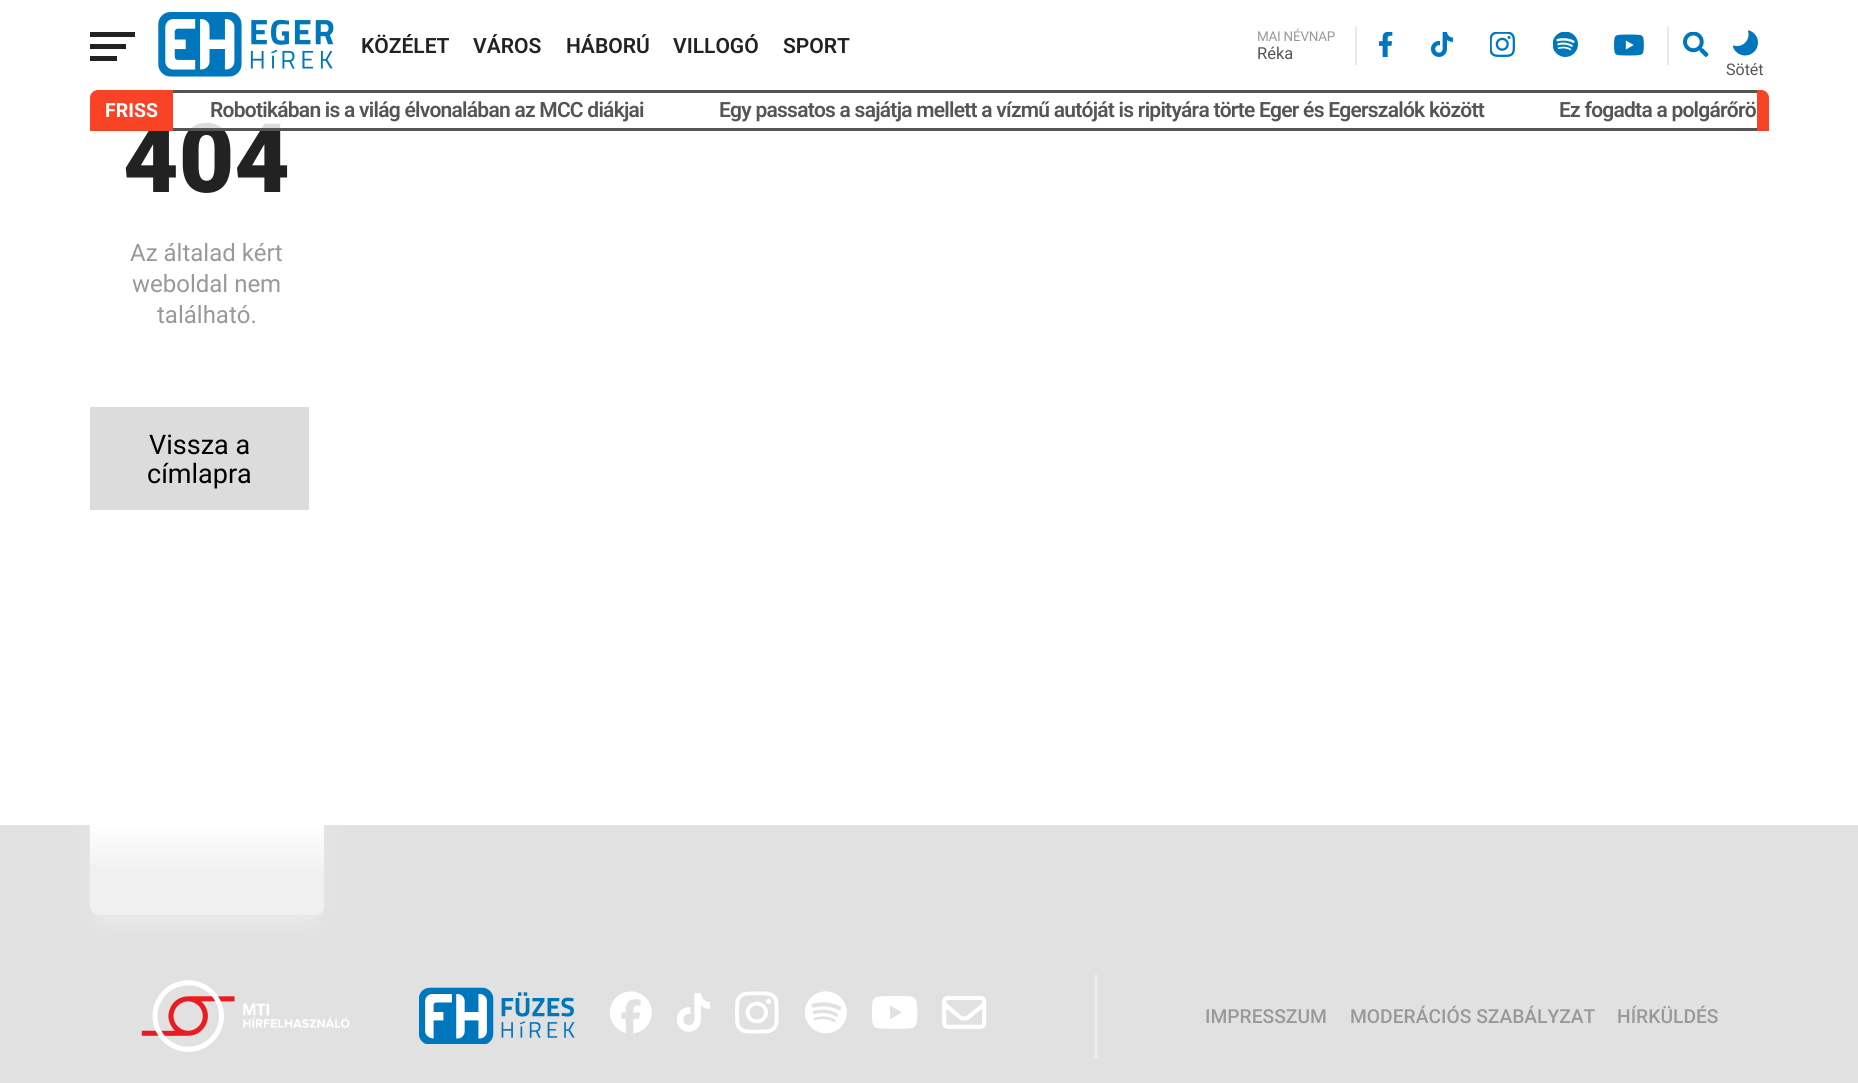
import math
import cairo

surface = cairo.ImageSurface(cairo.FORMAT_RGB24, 1858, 1083)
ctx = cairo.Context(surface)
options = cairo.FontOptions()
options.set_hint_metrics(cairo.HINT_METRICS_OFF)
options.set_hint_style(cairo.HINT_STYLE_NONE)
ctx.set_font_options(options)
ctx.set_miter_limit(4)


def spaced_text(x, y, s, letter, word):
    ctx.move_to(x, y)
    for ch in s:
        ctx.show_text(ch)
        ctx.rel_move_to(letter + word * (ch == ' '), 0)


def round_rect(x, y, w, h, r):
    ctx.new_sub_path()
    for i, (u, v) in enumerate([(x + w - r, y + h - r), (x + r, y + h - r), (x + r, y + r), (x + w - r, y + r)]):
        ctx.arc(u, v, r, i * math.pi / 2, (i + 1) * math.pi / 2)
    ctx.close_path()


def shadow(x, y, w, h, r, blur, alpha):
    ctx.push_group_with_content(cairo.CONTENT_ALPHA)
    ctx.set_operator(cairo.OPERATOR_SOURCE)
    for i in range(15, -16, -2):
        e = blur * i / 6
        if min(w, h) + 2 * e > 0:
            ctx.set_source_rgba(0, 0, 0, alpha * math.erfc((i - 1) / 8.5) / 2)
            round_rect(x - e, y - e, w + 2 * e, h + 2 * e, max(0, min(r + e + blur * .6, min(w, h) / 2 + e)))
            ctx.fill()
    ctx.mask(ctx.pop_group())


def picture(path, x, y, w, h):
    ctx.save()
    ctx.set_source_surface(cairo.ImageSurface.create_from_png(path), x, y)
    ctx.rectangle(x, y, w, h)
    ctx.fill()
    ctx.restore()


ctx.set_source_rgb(1, 1, 1)
ctx.paint()
ctx.set_source_rgb(0.882, 0.882, 0.882)
ctx.rectangle(0, 825, 1858, 258)
ctx.fill()
ctx.set_source_rgb(1, 1, 1)
shadow(105, -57, 204, 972, 0, 19, 0.5)
gradient = cairo.LinearGradient(207, 915, 207, -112)
gradient.add_color_stop_rgba(0.04, 0.941, 0.941, 0.941, 1)
gradient.add_color_stop_rgba(0.09, 1, 1, 1, 1)
gradient.add_color_stop_rgba(1, 1, 1, 1, 1)
ctx.set_source(gradient)
round_rect(90, -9, 234, 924, 9)
ctx.fill()
ctx.select_font_face("Roboto Black")
ctx.set_font_size(96)
ctx.set_source_rgb(0.133, 0.133, 0.133)
ctx.move_to(123, 192)
ctx.show_text("404")
ctx.set_source_rgba(1, 1, 1, 0.8)
ctx.rectangle(149, 122, 132, 9)
ctx.fill()
ctx.set_source_rgb(0.133, 0.133, 0.133)
ctx.rectangle(90, 32, 45, 5)
ctx.fill()
ctx.rectangle(90, 44, 36, 5)
ctx.fill()
ctx.rectangle(90, 56, 27, 5)
ctx.fill()
picture("img1.png", 158, 12, 176, 65)
ctx.select_font_face("Roboto SemiBold")
ctx.set_font_size(21)
ctx.move_to(361, 53)
ctx.show_text("KÖZÉLET")
ctx.move_to(473, 53)
ctx.show_text("VÁROS")
ctx.move_to(566, 53)
ctx.show_text("HÁBORÚ")
ctx.move_to(673, 53)
ctx.show_text("VILLOGÓ")
ctx.move_to(783, 53)
ctx.show_text("SPORT")
ctx.select_font_face("Roboto")
ctx.set_font_size(13.5)
ctx.set_source_rgb(0.6, 0.6, 0.6)
spaced_text(1257, 41, "MAI NÉVNAP", -0.25, 0)
ctx.set_font_size(16.5)
ctx.set_source_rgb(0.333, 0.333, 0.333)
ctx.move_to(1257, 59)
ctx.show_text("Réka")
ctx.set_source_rgb(0.914, 0.914, 0.914)
ctx.rectangle(1667, 27, 2, 38)
ctx.fill()
ctx.rectangle(1355, 27, 2, 38)
ctx.fill()
picture("img2.png", 1379, 32, 14, 25)
picture("img3.png", 1430, 32, 24, 25)
picture("img4.png", 1490, 32, 25, 25)
picture("img5.png", 1553, 32, 25, 25)
picture("img6.png", 1614, 34, 30, 22)
picture("img7.png", 1683, 32, 26, 25)
picture("img8.png", 1733, 30, 25, 26)
ctx.set_font_size(16)
ctx.set_source_rgb(0.333, 0.333, 0.333)
ctx.move_to(1726, 75)
ctx.show_text("Sötét")
ctx.set_source_rgb(0.969, 0.263, 0.153)
ctx.new_path()
ctx.move_to(98, 90)
ctx.line_to(173, 90)
ctx.line_to(173, 131)
ctx.line_to(90, 131)
ctx.line_to(90, 98)
ctx.curve_to(90, 93.5, 93.5, 90, 98, 90)
ctx.close_path()
ctx.fill()
ctx.select_font_face("Roboto", cairo.FONT_SLANT_NORMAL, cairo.FONT_WEIGHT_BOLD)
ctx.set_font_size(19.5)
ctx.set_source_rgb(1, 1, 1)
ctx.move_to(105, 117)
ctx.show_text("FRISS")
ctx.set_source_rgba(1, 1, 1, 0.2)
ctx.rectangle(192, 123, 89, 5)
ctx.fill()
ctx.set_source_rgb(0.333, 0.333, 0.333)
ctx.rectangle(173, 90, 1590, 3)
ctx.fill()
ctx.rectangle(173, 128, 1590, 3)
ctx.fill()
ctx.select_font_face("Roboto SemiBold")
ctx.set_font_size(21)
spaced_text(210, 117, "Robotikában is a világ élvonalában az MCC diákjai", -0.75, 0)
spaced_text(719, 117, "Egy passatos a sajátja mellett a vízmű autóját is ripityára törte Eger és Egerszalók között", -0.75, 0)
spaced_text(1559, 117, "Ez fogadta a polgárőrö", -0.75, 0)
ctx.set_source_rgb(0.969, 0.263, 0.153)
ctx.new_path()
ctx.move_to(1757, 90)
ctx.line_to(1761, 90)
ctx.curve_to(1765.5, 90, 1769, 93.5, 1769, 98)
ctx.line_to(1769, 131)
ctx.line_to(1757, 131)
ctx.close_path()
ctx.fill()
ctx.select_font_face("Roboto")
ctx.set_font_size(24)
ctx.set_source_rgb(0.6, 0.6, 0.6)
ctx.move_to(130, 261)
ctx.show_text("Az általad kért")
ctx.move_to(132, 292)
ctx.show_text("weboldal nem")
ctx.move_to(157, 323)
ctx.show_text("található.")
ctx.set_source_rgb(0.863, 0.863, 0.863)
ctx.rectangle(90, 407, 219, 103)
ctx.fill()
ctx.set_font_size(27)
ctx.set_source_rgb(0, 0, 0)
ctx.move_to(149, 454)
ctx.show_text("Vissza a")
ctx.move_to(147, 483)
ctx.show_text("címlapra")
picture("img9.png", 141, 980, 209, 72)
picture("img10.png", 419, 987, 156, 57)
picture("img11.png", 609, 991, 43, 43)
picture("img12.png", 677, 993, 34, 39)
picture("img13.png", 735, 991, 44, 43)
picture("img14.png", 805, 991, 42, 43)
picture("img15.png", 872, 996, 46, 33)
picture("img16.png", 942, 996, 45, 33)
ctx.set_source_rgb(0.941, 0.941, 0.941)
ctx.rectangle(1095, 975, 2, 83)
ctx.fill()
ctx.select_font_face("Roboto Medium")
ctx.set_font_size(19.25)
ctx.set_source_rgb(0.6, 0.6, 0.6)
ctx.move_to(1205, 1023)
ctx.show_text("IMPRESSZUM")
ctx.move_to(1350, 1023)
ctx.show_text("MODERÁCIÓS SZABÁLYZAT")
ctx.move_to(1617, 1023)
ctx.show_text("HÍRKÜLDÉS")
surface.write_to_png("page.png")
